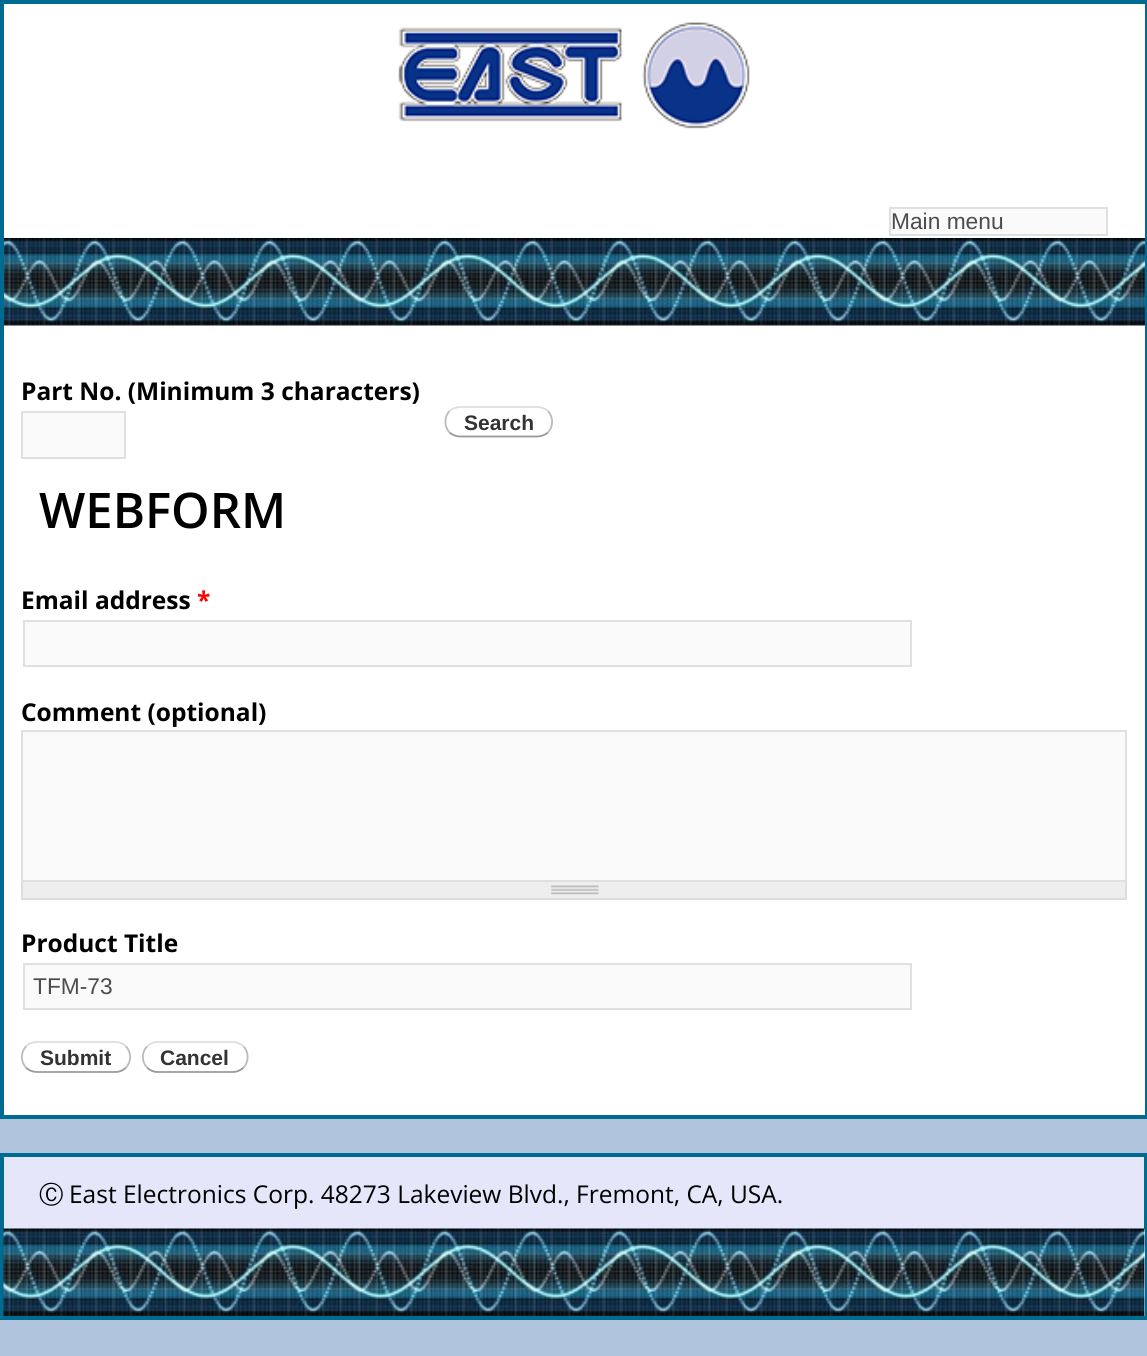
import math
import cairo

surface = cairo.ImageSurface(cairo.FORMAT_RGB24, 1147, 1356)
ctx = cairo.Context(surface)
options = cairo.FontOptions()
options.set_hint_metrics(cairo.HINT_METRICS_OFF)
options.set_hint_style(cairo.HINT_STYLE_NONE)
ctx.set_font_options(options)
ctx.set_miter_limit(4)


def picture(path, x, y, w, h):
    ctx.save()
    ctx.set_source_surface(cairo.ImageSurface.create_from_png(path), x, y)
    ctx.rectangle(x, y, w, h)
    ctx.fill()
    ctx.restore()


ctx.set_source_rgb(0.69, 0.769, 0.871)
ctx.paint()
ctx.set_source_rgb(1, 1, 1)
ctx.rectangle(4, 4, 1141, 234)
ctx.fill()
ctx.set_source_rgb(0, 0.42, 0.569)
ctx.rectangle(0, 0, 1147, 4)
ctx.fill()
ctx.rectangle(1145, 0, 2, 1118)
ctx.fill()
ctx.rectangle(0, 0, 4, 326)
ctx.fill()
picture("img1.png", 398, 22, 352, 107)
ctx.set_source_rgb(0.984, 0.98, 0.98)
ctx.rectangle(890, 208, 217, 27)
ctx.fill_preserve()
ctx.set_source_rgb(0.878, 0.878, 0.878)
ctx.stroke()
ctx.select_font_face("Liberation Sans")
ctx.set_font_size(22.75)
ctx.set_source_rgb(0.298, 0.298, 0.298)
ctx.move_to(891, 229)
ctx.show_text("Main menu")
ctx.set_source_rgb(1, 1, 1)
ctx.rectangle(4, 325, 1141, 790)
ctx.fill()
picture("img2.png", 4, 238, 1141, 88)
ctx.set_source_rgb(0, 0.42, 0.569)
ctx.rectangle(0, 1115, 1147, 4)
ctx.fill()
ctx.rectangle(0, 326, 4, 792)
ctx.fill()
ctx.select_font_face("Open Sans", cairo.FONT_SLANT_NORMAL, cairo.FONT_WEIGHT_BOLD)
ctx.set_font_size(24.5)
ctx.set_source_rgb(0, 0, 0)
ctx.move_to(21, 400)
ctx.show_text("Part No. (Minimum 3 characters)")
ctx.set_source_rgb(0.984, 0.98, 0.98)
ctx.rectangle(22, 412, 103, 46)
ctx.fill_preserve()
ctx.set_source_rgb(0.878, 0.878, 0.878)
ctx.stroke()
ctx.new_path()
ctx.move_to(449.5, 411)
ctx.curve_to(452.5, 408.5, 456.5, 407, 460, 407)
ctx.line_to(537, 407)
ctx.curve_to(541, 407, 545, 408.5, 548, 411)
ctx.set_source_rgb(0.867, 0.867, 0.867)
ctx.set_line_width(1.8)
ctx.stroke()
ctx.new_path()
ctx.move_to(548, 411)
ctx.curve_to(553.5, 417, 553.5, 426.5, 548, 432.5)
ctx.set_source_rgb(0.733, 0.733, 0.733)
ctx.stroke()
ctx.new_path()
ctx.move_to(548, 432.5)
ctx.curve_to(545, 435, 541, 436.5, 537, 436.5)
ctx.line_to(460, 436.5)
ctx.curve_to(456.5, 436.5, 452.5, 435, 449.5, 432.5)
ctx.set_source_rgb(0.6, 0.6, 0.6)
ctx.stroke()
ctx.new_path()
ctx.move_to(449.5, 432.5)
ctx.curve_to(444, 426.5, 444, 417, 449.5, 411)
ctx.set_source_rgb(0.733, 0.733, 0.733)
ctx.stroke()
ctx.select_font_face("Liberation Sans", cairo.FONT_SLANT_NORMAL, cairo.FONT_WEIGHT_BOLD)
ctx.set_font_size(21)
ctx.set_source_rgb(0.2, 0.2, 0.2)
ctx.move_to(464, 430)
ctx.show_text("Search")
ctx.select_font_face("Open Sans SemiBold")
ctx.set_font_size(49)
ctx.set_source_rgb(0, 0, 0)
ctx.move_to(39, 528)
ctx.show_text("WEBFORM")
ctx.select_font_face("Open Sans", cairo.FONT_SLANT_NORMAL, cairo.FONT_WEIGHT_BOLD)
ctx.set_font_size(24.5)
ctx.move_to(21, 609)
ctx.show_text("Email address")
ctx.set_source_rgb(1, 0, 0)
ctx.move_to(197, 609)
ctx.show_text("*")
ctx.set_source_rgb(0.984, 0.98, 0.98)
ctx.rectangle(24, 621, 887, 45)
ctx.fill_preserve()
ctx.set_source_rgb(0.878, 0.878, 0.878)
ctx.set_line_width(2)
ctx.stroke()
ctx.set_source_rgb(0, 0, 0)
ctx.move_to(21, 721)
ctx.show_text("Comment (optional)")
ctx.set_source_rgb(0.984, 0.98, 0.98)
ctx.rectangle(22, 731, 1104, 150)
ctx.fill_preserve()
ctx.set_source_rgb(0.878, 0.878, 0.878)
ctx.stroke()
ctx.set_source_rgb(0.933, 0.933, 0.933)
ctx.rectangle(23, 882, 1102, 16)
ctx.fill()
picture("img3.png", 551, 885, 48, 10)
ctx.set_source_rgb(0.867, 0.867, 0.867)
ctx.rectangle(1125, 882, 2, 18)
ctx.fill()
ctx.rectangle(21, 898, 1106, 2)
ctx.fill()
ctx.rectangle(21, 882, 2, 18)
ctx.fill()
ctx.set_source_rgb(0, 0, 0)
ctx.move_to(21, 952)
ctx.show_text("Product Title")
ctx.set_source_rgb(0.984, 0.98, 0.98)
ctx.rectangle(24, 964, 887, 45)
ctx.fill_preserve()
ctx.set_source_rgb(0.878, 0.878, 0.878)
ctx.stroke()
ctx.select_font_face("Liberation Sans")
ctx.set_font_size(22.75)
ctx.set_source_rgb(0.298, 0.298, 0.298)
ctx.move_to(33, 994)
ctx.show_text("TFM-73")
ctx.new_path()
ctx.move_to(26, 1046.5)
ctx.curve_to(29, 1043.5, 33, 1042, 37, 1042)
ctx.line_to(115.5, 1042)
ctx.curve_to(119.5, 1042, 123, 1043.5, 126, 1046.5)
ctx.set_source_rgb(0.867, 0.867, 0.867)
ctx.set_line_width(1.8)
ctx.stroke()
ctx.new_path()
ctx.move_to(126, 1046.5)
ctx.curve_to(131.5, 1052, 131.5, 1062, 126, 1067.5)
ctx.set_source_rgb(0.733, 0.733, 0.733)
ctx.stroke()
ctx.new_path()
ctx.move_to(126, 1067.5)
ctx.curve_to(123, 1070.5, 119.5, 1072, 115.5, 1072)
ctx.line_to(37, 1072)
ctx.curve_to(33, 1072, 29, 1070.5, 26, 1067.5)
ctx.set_source_rgb(0.6, 0.6, 0.6)
ctx.stroke()
ctx.new_path()
ctx.move_to(26, 1067.5)
ctx.curve_to(20.5, 1062, 20.5, 1052, 26, 1046.5)
ctx.set_source_rgb(0.733, 0.733, 0.733)
ctx.stroke()
ctx.select_font_face("Liberation Sans", cairo.FONT_SLANT_NORMAL, cairo.FONT_WEIGHT_BOLD)
ctx.set_font_size(21)
ctx.set_source_rgb(0.2, 0.2, 0.2)
ctx.move_to(40, 1065)
ctx.show_text("Submit")
ctx.new_path()
ctx.move_to(147, 1046.5)
ctx.curve_to(150, 1043.5, 153.5, 1042, 157.5, 1042)
ctx.line_to(233, 1042)
ctx.curve_to(236.5, 1042, 240.5, 1043.5, 243.5, 1046.5)
ctx.set_source_rgb(0.867, 0.867, 0.867)
ctx.stroke()
ctx.new_path()
ctx.move_to(243.5, 1046.5)
ctx.curve_to(249, 1052, 249, 1062, 243.5, 1067.5)
ctx.set_source_rgb(0.733, 0.733, 0.733)
ctx.stroke()
ctx.new_path()
ctx.move_to(243.5, 1067.5)
ctx.curve_to(240.5, 1070.5, 236.5, 1072, 233, 1072)
ctx.line_to(157.5, 1072)
ctx.curve_to(153.5, 1072, 150, 1070.5, 147, 1067.5)
ctx.set_source_rgb(0.6, 0.6, 0.6)
ctx.stroke()
ctx.new_path()
ctx.move_to(147, 1067.5)
ctx.curve_to(141.5, 1062, 141.5, 1052, 147, 1046.5)
ctx.set_source_rgb(0.733, 0.733, 0.733)
ctx.stroke()
ctx.set_source_rgb(0.2, 0.2, 0.2)
ctx.move_to(160, 1065)
ctx.show_text("Cancel")
ctx.set_source_rgb(0.902, 0.902, 0.98)
ctx.rectangle(4, 1157, 1140, 72)
ctx.fill()
ctx.rectangle(2, 1155, 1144, 163)
ctx.set_source_rgb(0, 0.42, 0.569)
ctx.set_line_width(4)
ctx.stroke()
ctx.select_font_face("WenQuanYi Zen Hei Medium")
ctx.set_font_size(24.5)
ctx.set_source_rgb(0, 0, 0)
ctx.move_to(39, 1203)
ctx.show_text("Ⓒ")
ctx.select_font_face("Open Sans")
ctx.move_to(69, 1203)
ctx.show_text("East Electronics Corp. 48273 Lakeview Blvd., Fremont, CA, USA.")
ctx.set_source_rgb(1, 1, 1)
ctx.rectangle(1144, 1229, 1, 87)
ctx.fill()
picture("img4.png", 3, 1228, 1142, 88)
surface.write_to_png("page.png")
